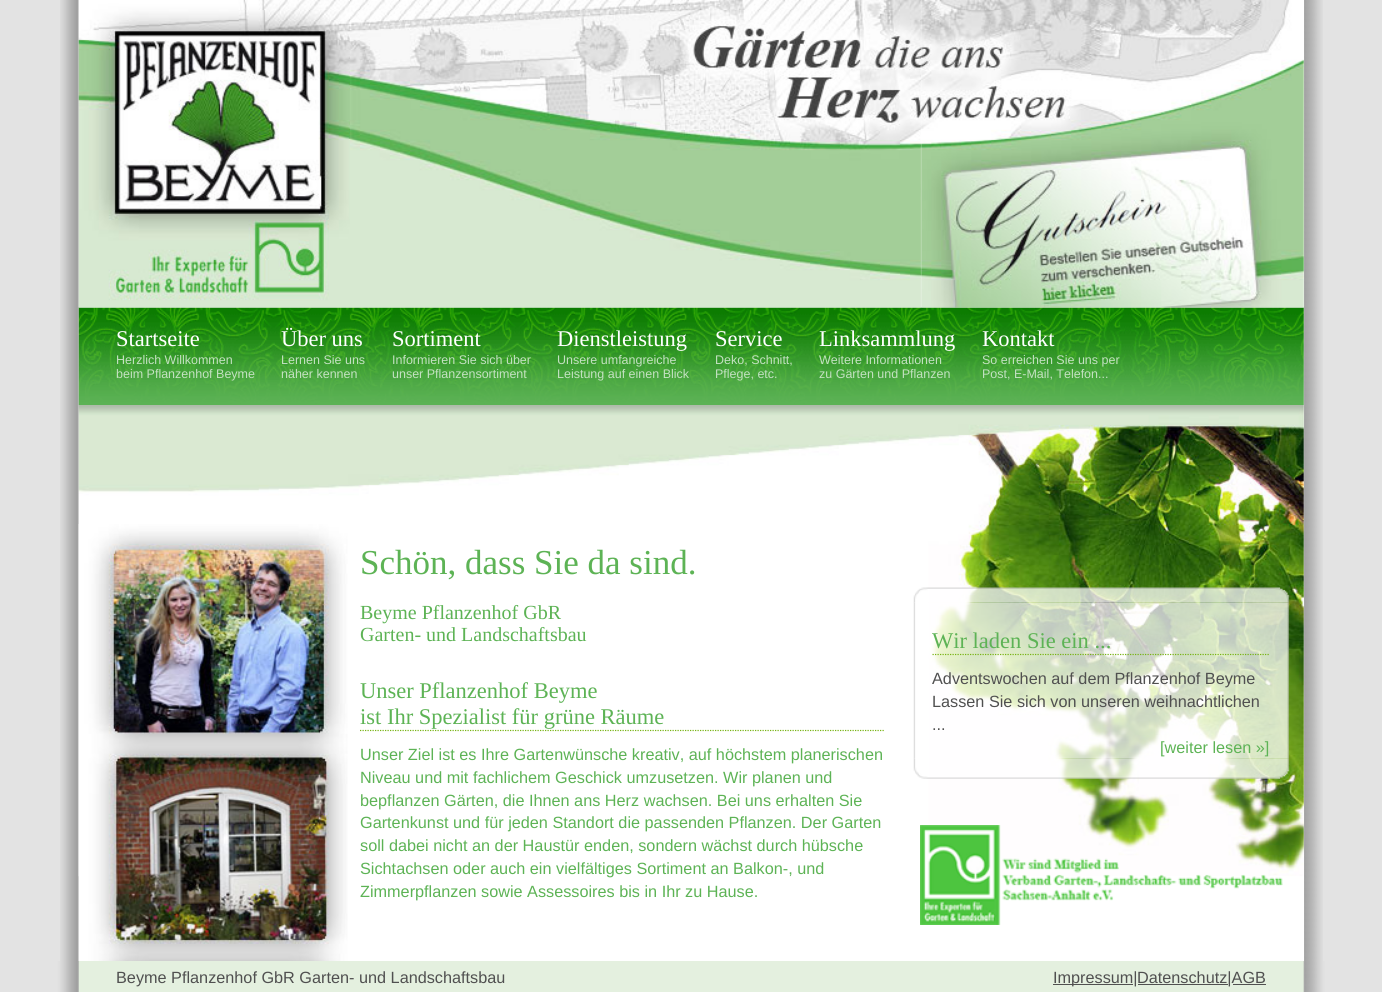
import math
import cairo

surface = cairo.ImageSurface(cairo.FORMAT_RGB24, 1382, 992)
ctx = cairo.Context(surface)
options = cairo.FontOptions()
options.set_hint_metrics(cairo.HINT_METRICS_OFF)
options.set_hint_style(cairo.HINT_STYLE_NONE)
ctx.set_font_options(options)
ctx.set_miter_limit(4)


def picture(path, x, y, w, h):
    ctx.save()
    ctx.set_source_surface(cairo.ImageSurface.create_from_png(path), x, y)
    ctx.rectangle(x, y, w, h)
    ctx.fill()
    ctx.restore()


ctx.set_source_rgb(0.89, 0.89, 0.89)
ctx.paint()
picture("img1.png", 60, 0, 1263, 961)
ctx.set_source_rgb(1, 1, 1)
ctx.rectangle(1303, 0, 1, 308)
ctx.fill()
picture("img5.png", 78, 307, 1226, 98)
picture("img2.png", 78, 0, 272, 308)
picture("img3.png", 350, 0, 572, 308)
picture("img4.png", 921, 0, 383, 308)
ctx.select_font_face("Liberation Serif")
ctx.set_font_size(22.5)
ctx.move_to(116, 346)
ctx.show_text("Startseite")
ctx.select_font_face("Liberation Sans")
ctx.set_font_size(12.5)
ctx.set_source_rgb(0.769, 0.882, 0.761)
ctx.move_to(116, 364)
ctx.show_text("Herzlich Willkommen")
ctx.move_to(116, 378)
ctx.show_text("beim Pflanzenhof Beyme")
ctx.select_font_face("Liberation Serif")
ctx.set_font_size(22.5)
ctx.set_source_rgb(1, 1, 1)
ctx.move_to(281, 346)
ctx.show_text("Über uns")
ctx.select_font_face("Liberation Sans")
ctx.set_font_size(12.5)
ctx.set_source_rgb(0.769, 0.882, 0.761)
ctx.move_to(281, 364)
ctx.show_text("Lernen Sie uns")
ctx.move_to(281, 378)
ctx.show_text("näher kennen")
ctx.select_font_face("Liberation Serif")
ctx.set_font_size(22.5)
ctx.set_source_rgb(1, 1, 1)
ctx.move_to(392, 346)
ctx.show_text("Sortiment")
ctx.select_font_face("Liberation Sans")
ctx.set_font_size(12.5)
ctx.set_source_rgb(0.769, 0.882, 0.761)
ctx.move_to(392, 364)
ctx.show_text("Informieren Sie sich über")
ctx.move_to(392, 378)
ctx.show_text("unser Pflanzensortiment")
ctx.select_font_face("Liberation Serif")
ctx.set_font_size(22.5)
ctx.set_source_rgb(1, 1, 1)
ctx.move_to(557, 346)
ctx.show_text("Dienstleistung")
ctx.select_font_face("Liberation Sans")
ctx.set_font_size(12.5)
ctx.set_source_rgb(0.769, 0.882, 0.761)
ctx.move_to(557, 364)
ctx.show_text("Unsere umfangreiche")
ctx.move_to(557, 378)
ctx.show_text("Leistung auf einen Blick")
ctx.select_font_face("Liberation Serif")
ctx.set_font_size(22.5)
ctx.set_source_rgb(1, 1, 1)
ctx.move_to(715, 346)
ctx.show_text("Service")
ctx.select_font_face("Liberation Sans")
ctx.set_font_size(12.5)
ctx.set_source_rgb(0.769, 0.882, 0.761)
ctx.move_to(715, 364)
ctx.show_text("Deko, Schnitt,")
ctx.move_to(715, 378)
ctx.show_text("Pflege, etc.")
ctx.select_font_face("Liberation Serif")
ctx.set_font_size(22.5)
ctx.set_source_rgb(1, 1, 1)
ctx.move_to(819, 346)
ctx.show_text("Linksammlung")
ctx.select_font_face("Liberation Sans")
ctx.set_font_size(12.5)
ctx.set_source_rgb(0.769, 0.882, 0.761)
ctx.move_to(819, 364)
ctx.show_text("Weitere Informationen")
ctx.move_to(819, 378)
ctx.show_text("zu Gärten und Pflanzen")
ctx.select_font_face("Liberation Serif")
ctx.set_font_size(22.5)
ctx.set_source_rgb(1, 1, 1)
ctx.move_to(982, 346)
ctx.show_text("Kontakt")
ctx.select_font_face("Liberation Sans")
ctx.set_font_size(12.5)
ctx.set_source_rgb(0.769, 0.882, 0.761)
ctx.move_to(982, 364)
ctx.show_text("So erreichen Sie uns per")
ctx.move_to(982, 378)
ctx.show_text("Post, E-Mail, Telefon...")
ctx.set_source_rgb(1, 1, 1)
ctx.rectangle(1303, 405, 1, 556)
ctx.fill()
picture("img6.png", 78, 405, 1226, 472)
picture("img7.png", 78, 524, 270, 437)
ctx.select_font_face("Liberation Serif")
ctx.set_font_size(35)
ctx.set_source_rgb(0.365, 0.702, 0.333)
ctx.move_to(360, 574)
ctx.show_text("Schön, dass Sie da sind.")
ctx.set_font_size(20)
ctx.move_to(360, 619)
ctx.show_text("Beyme Pflanzenhof GbR")
ctx.move_to(360, 641)
ctx.show_text("Garten- und Landschaftsbau")
ctx.new_path()
ctx.move_to(360, 730.5)
ctx.line_to(885, 730.5)
ctx.set_source_rgb(0.471, 0.702, 0.082)
ctx.set_line_width(1.2)
ctx.set_dash([1.25, 1.25])
ctx.stroke()
ctx.set_font_size(22.5)
ctx.set_source_rgb(0.365, 0.702, 0.333)
ctx.move_to(360, 698)
ctx.show_text("Unser Pflanzenhof Beyme")
ctx.move_to(360, 724)
ctx.show_text("ist Ihr Spezialist für grüne Räume")
ctx.select_font_face("Liberation Sans")
ctx.set_font_size(16.25)
ctx.move_to(360, 760)
ctx.show_text("Unser Ziel ist es Ihre Gartenwünsche kreativ, auf höchstem planerischen")
ctx.move_to(360, 783)
ctx.show_text("Niveau und mit fachlichem Geschick umzusetzen. Wir planen und")
ctx.move_to(360, 806)
ctx.show_text("bepflanzen Gärten, die Ihnen ans Herz wachsen. Bei uns erhalten Sie")
ctx.move_to(360, 828)
ctx.show_text("Gartenkunst und für jeden Standort die passenden Pflanzen. Der Garten")
ctx.move_to(360, 851)
ctx.show_text("soll dabei nicht an der Haustür enden, sondern wächst durch hübsche")
ctx.move_to(360, 874)
ctx.show_text("Sichtachsen oder auch ein vielfältiges Sortiment an Balkon-, und")
ctx.move_to(360, 897)
ctx.show_text("Zimmerpflanzen sowie Assessoires bis in Ihr zu Hause.")
picture("img8.png", 913, 587, 376, 16)
picture("img9.png", 913, 602, 376, 157)
ctx.new_path()
ctx.move_to(932.5, 654.5)
ctx.line_to(1270, 654.5)
ctx.set_source_rgb(0.471, 0.702, 0.082)
ctx.stroke()
ctx.select_font_face("Liberation Serif")
ctx.set_font_size(22.5)
ctx.set_source_rgb(0.365, 0.702, 0.333)
ctx.move_to(932, 648)
ctx.show_text("Wir laden Sie ein ...")
ctx.select_font_face("Liberation Sans")
ctx.set_font_size(16.25)
ctx.set_source_rgb(0.314, 0.314, 0.314)
ctx.move_to(932, 684)
ctx.show_text("Adventswochen auf dem Pflanzenhof Beyme")
ctx.move_to(932, 707)
ctx.show_text("Lassen Sie sich von unseren weihnachtlichen")
ctx.move_to(932, 730)
ctx.show_text("...")
ctx.set_source_rgb(0.365, 0.702, 0.333)
ctx.move_to(1160, 753)
ctx.show_text("[weiter lesen »]")
picture("img10.png", 913, 758, 376, 21)
picture("img11.png", 920, 825, 363, 100)
picture("img12.png", 0, 961, 1382, 31)
ctx.set_source_rgb(0.314, 0.314, 0.314)
ctx.move_to(116, 983)
ctx.show_text("Beyme Pflanzenhof GbR Garten- und Landschaftsbau")
ctx.rectangle(1053, 984, 80, 1)
ctx.fill()
ctx.move_to(1053, 983)
ctx.show_text("Impressum|")
ctx.rectangle(1138, 984, 90, 1)
ctx.fill()
ctx.move_to(1137, 983)
ctx.show_text("Datenschutz|AGB")
ctx.rectangle(1233, 984, 33, 1)
ctx.fill()
surface.write_to_png("page.png")
